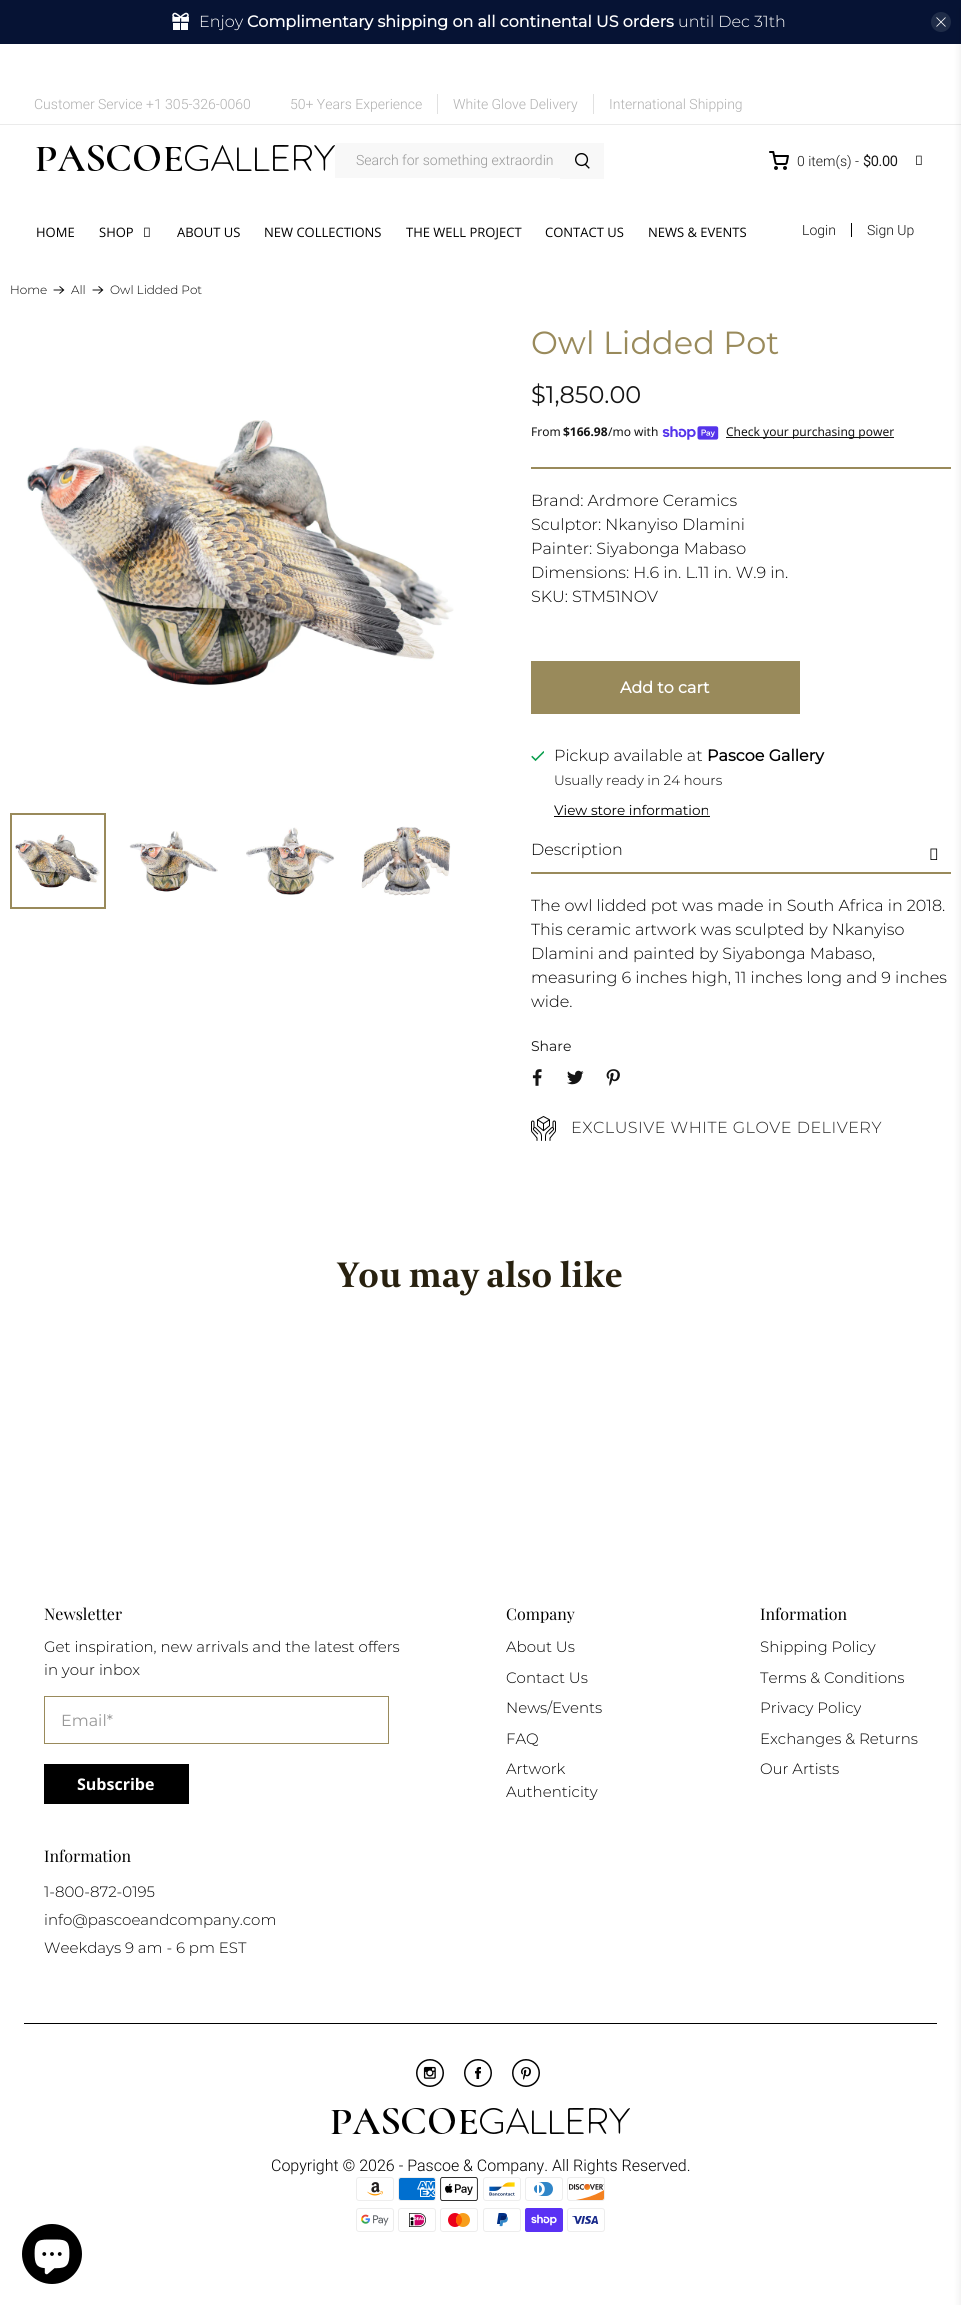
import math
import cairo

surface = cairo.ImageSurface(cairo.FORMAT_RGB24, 961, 2305)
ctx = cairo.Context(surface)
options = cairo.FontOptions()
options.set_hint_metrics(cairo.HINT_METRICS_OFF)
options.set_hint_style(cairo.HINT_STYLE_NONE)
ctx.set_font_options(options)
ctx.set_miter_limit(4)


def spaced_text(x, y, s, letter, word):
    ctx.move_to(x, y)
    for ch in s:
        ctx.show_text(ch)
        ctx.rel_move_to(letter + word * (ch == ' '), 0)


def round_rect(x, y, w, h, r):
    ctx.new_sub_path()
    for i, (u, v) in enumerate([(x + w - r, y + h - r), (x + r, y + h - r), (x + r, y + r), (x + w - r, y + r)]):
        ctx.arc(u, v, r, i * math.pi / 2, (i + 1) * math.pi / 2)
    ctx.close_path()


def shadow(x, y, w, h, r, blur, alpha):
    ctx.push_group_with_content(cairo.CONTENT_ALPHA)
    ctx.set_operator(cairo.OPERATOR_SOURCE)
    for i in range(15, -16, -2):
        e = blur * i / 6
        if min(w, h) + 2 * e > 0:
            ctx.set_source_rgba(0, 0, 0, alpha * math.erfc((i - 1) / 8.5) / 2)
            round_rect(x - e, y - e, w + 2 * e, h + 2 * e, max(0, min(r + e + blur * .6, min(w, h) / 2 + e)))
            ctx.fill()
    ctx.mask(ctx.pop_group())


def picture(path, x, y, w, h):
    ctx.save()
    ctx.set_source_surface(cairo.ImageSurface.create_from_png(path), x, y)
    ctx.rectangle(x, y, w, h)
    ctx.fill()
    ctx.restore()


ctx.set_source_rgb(1, 1, 1)
ctx.paint()
ctx.set_source_rgb(0.024, 0.078, 0.204)
ctx.rectangle(0, 0, 961, 44)
ctx.fill()
picture("img1.png", 172, 12, 17, 18)
ctx.select_font_face("Montserrat Light")
ctx.set_font_size(16)
ctx.set_source_rgb(1, 1, 1)
ctx.move_to(199, 27)
ctx.show_text("Enjoy")
ctx.select_font_face("Montserrat", cairo.FONT_SLANT_NORMAL, cairo.FONT_WEIGHT_BOLD)
ctx.move_to(247, 27)
ctx.show_text("Complimentary shipping on all continental US orders")
ctx.select_font_face("Montserrat Light")
ctx.move_to(678, 27)
ctx.show_text("until Dec 31th")
ctx.set_source_rgb(0.122, 0.173, 0.282)
ctx.new_path()
ctx.arc(941, 22, 10, 0, 2 * math.pi)
ctx.fill()
picture("img2.png", 936, 17, 10, 10)
ctx.set_source_rgb(0.918, 0.918, 0.918)
ctx.rectangle(0, 124, 961, 1)
ctx.fill()
ctx.set_source_rgb(0.6, 0.541, 0.357)
ctx.rectangle(531, 467, 420, 2)
ctx.fill()
ctx.rectangle(531, 872, 420, 2)
ctx.fill()
ctx.set_source_rgb(0.039, 0.039, 0.039)
shadow(961, 8, 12, 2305, 0, 4, 0.1)
ctx.select_font_face("Roboto Light")
ctx.set_font_size(14)
ctx.set_source_rgb(0.69, 0.69, 0.69)
ctx.move_to(34, 109)
ctx.show_text("Customer Service +1 305-326-0060")
ctx.move_to(290, 109)
ctx.show_text("50+ Years Experience")
ctx.set_source_rgb(0.882, 0.882, 0.882)
ctx.rectangle(437, 94, 1, 20)
ctx.fill()
ctx.set_source_rgb(0.69, 0.69, 0.69)
ctx.move_to(453, 109)
ctx.show_text("White Glove Delivery")
ctx.set_source_rgb(0.882, 0.882, 0.882)
ctx.rectangle(593, 94, 1, 20)
ctx.fill()
ctx.set_source_rgb(0.69, 0.69, 0.69)
ctx.move_to(609, 109)
ctx.show_text("International Shipping")
picture("img3.png", 36, 145, 299, 26)
ctx.set_source_rgb(0.969, 0.969, 0.969)
ctx.rectangle(335, 143, 225, 35)
ctx.fill()
ctx.set_source_rgb(0.592, 0.592, 0.592)
ctx.move_to(356, 165)
ctx.show_text("Search for something extraordin")
ctx.set_source_rgb(0.969, 0.969, 0.969)
ctx.rectangle(560, 143, 44, 36)
ctx.fill()
picture("img4.png", 575, 153, 15, 16)
picture("img5.png", 769, 151, 20, 19)
ctx.set_source_rgb(0.082, 0.082, 0.082)
ctx.move_to(797, 166)
ctx.show_text("0 item(s) -")
ctx.select_font_face("Roboto", cairo.FONT_SLANT_NORMAL, cairo.FONT_WEIGHT_BOLD)
ctx.move_to(863, 166)
ctx.show_text("$0.00")
picture("img6.png", 916, 155, 6, 10)
ctx.select_font_face("Open Sans")
ctx.set_font_size(13)
ctx.set_source_rgb(0, 0, 0)
ctx.move_to(36, 237)
ctx.show_text("HOME")
ctx.move_to(99, 237)
ctx.show_text("SHOP")
picture("img6.png", 144, 227, 6, 10)
ctx.move_to(177, 237)
ctx.show_text("ABOUT US")
ctx.move_to(264, 237)
ctx.show_text("NEW COLLECTIONS")
ctx.move_to(406, 237)
ctx.show_text("THE WELL PROJECT")
ctx.move_to(545, 237)
ctx.show_text("CONTACT US")
ctx.move_to(648, 237)
ctx.show_text("NEWS & EVENTS")
ctx.rectangle(851, 223, 1, 14)
ctx.fill()
ctx.select_font_face("Roboto Light")
ctx.set_font_size(14)
ctx.set_source_rgb(0.082, 0.082, 0.082)
ctx.move_to(802, 235)
ctx.show_text("Login")
ctx.move_to(867, 235)
ctx.show_text("Sign Up")
ctx.select_font_face("Montserrat Light")
ctx.set_font_size(12)
ctx.set_source_rgb(0, 0, 0)
ctx.move_to(10, 294)
ctx.show_text("Home")
picture("img7.png", 53, 286, 12, 8)
ctx.move_to(71, 294)
ctx.show_text("All")
picture("img7.png", 92, 286, 12, 8)
ctx.move_to(110, 294)
ctx.show_text("Owl Lidded Pot")
picture("img8.png", 26, 420, 428, 266)
ctx.rectangle(11, 814, 94, 94)
ctx.set_source_rgb(0.6, 0.541, 0.357)
ctx.stroke()
picture("img9.png", 15, 834, 85, 54)
picture("img10.png", 129, 831, 89, 61)
picture("img11.png", 246, 827, 89, 68)
picture("img12.png", 361, 826, 90, 70)
ctx.select_font_face("Montserrat")
ctx.set_font_size(32)
ctx.move_to(531, 354)
ctx.show_text("Owl Lidded Pot")
ctx.set_font_size(24)
ctx.set_source_rgb(0.082, 0.082, 0.082)
ctx.move_to(531, 403)
ctx.show_text("$1,850.00")
ctx.select_font_face("Noto Sans")
ctx.set_font_size(12)
ctx.move_to(531, 436)
ctx.show_text("From")
ctx.select_font_face("Noto Sans", cairo.FONT_SLANT_NORMAL, cairo.FONT_WEIGHT_BOLD)
ctx.move_to(563, 436)
ctx.show_text("$166.98")
ctx.select_font_face("Noto Sans")
ctx.move_to(608, 436)
ctx.show_text("/mo with")
picture("img13.png", 662, 426, 57, 14)
ctx.set_source_rgb(0.078, 0.078, 0.078)
ctx.rectangle(726, 437, 168, 1)
ctx.fill()
ctx.set_source_rgb(0.082, 0.082, 0.082)
ctx.move_to(726, 436)
ctx.show_text("Check your purchasing power")
ctx.select_font_face("Montserrat Light")
ctx.set_font_size(16)
ctx.set_source_rgb(0, 0, 0)
ctx.move_to(531, 506)
ctx.show_text("Brand: Ardmore Ceramics")
ctx.move_to(531, 530)
ctx.show_text("Sculptor: Nkanyiso Dlamini")
ctx.move_to(531, 554)
ctx.show_text("Painter: Siyabonga Mabaso")
ctx.move_to(531, 578)
ctx.show_text("Dimensions: H.6 in. L.11 in. W.9 in.")
ctx.move_to(531, 602)
ctx.show_text("SKU: STM51NOV")
ctx.set_source_rgb(0.6, 0.541, 0.357)
ctx.rectangle(531, 661, 269, 53)
ctx.fill()
ctx.select_font_face("Montserrat", cairo.FONT_SLANT_NORMAL, cairo.FONT_WEIGHT_BOLD)
ctx.set_source_rgb(1, 1, 1)
ctx.move_to(620, 693)
ctx.show_text("Add to cart")
picture("img14.png", 531, 751, 13, 11)
ctx.select_font_face("Montserrat Light")
ctx.set_source_rgb(0, 0, 0)
ctx.move_to(554, 761)
ctx.show_text("Pickup available at")
ctx.select_font_face("Montserrat", cairo.FONT_SLANT_NORMAL, cairo.FONT_WEIGHT_BOLD)
ctx.move_to(707, 761)
ctx.show_text("Pascoe Gallery")
ctx.select_font_face("Montserrat Light")
ctx.set_font_size(13.6)
ctx.move_to(554, 785)
ctx.show_text("Usually ready in 24 hours")
ctx.select_font_face("Montserrat")
ctx.move_to(554, 815)
ctx.show_text("View store information")
ctx.rectangle(554, 816, 156, 1)
ctx.fill()
ctx.select_font_face("Montserrat Light")
ctx.set_font_size(16)
ctx.move_to(531, 855)
ctx.show_text("Description")
picture("img15.png", 930, 848, 8, 12)
ctx.move_to(531, 911)
ctx.show_text("The owl lidded pot was made in South Africa in 2018.")
ctx.move_to(531, 935)
ctx.show_text("This ceramic artwork was sculpted by Nkanyiso")
ctx.move_to(531, 959)
ctx.show_text("Dlamini and painted by Siyabonga Mabaso,")
ctx.move_to(531, 983)
ctx.show_text("measuring 6 inches high, 11 inches long and 9 inches")
ctx.move_to(531, 1007)
ctx.show_text("wide.")
ctx.select_font_face("Montserrat")
ctx.set_font_size(14)
ctx.set_source_rgb(0.082, 0.082, 0.082)
ctx.move_to(531, 1051)
ctx.show_text("Share")
picture("img16.png", 532, 1069, 10, 17)
picture("img17.png", 567, 1070, 17, 15)
picture("img18.png", 606, 1069, 14, 17)
picture("img19.png", 531, 1116, 25, 25)
ctx.select_font_face("Montserrat Light")
ctx.set_font_size(16)
ctx.set_source_rgb(0.133, 0.133, 0.133)
spaced_text(571, 1133, "EXCLUSIVE WHITE GLOVE DELIVERY", 0.5, 0)
ctx.select_font_face("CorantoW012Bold", cairo.FONT_SLANT_NORMAL, cairo.FONT_WEIGHT_BOLD)
ctx.set_font_size(35)
ctx.set_source_rgb(0.157, 0.129, 0.059)
ctx.move_to(338, 1287)
ctx.show_text("You may also like")
ctx.select_font_face("Playfair Display")
ctx.set_font_size(16)
ctx.set_source_rgb(0, 0, 0)
ctx.move_to(44, 1620)
ctx.show_text("Newsletter")
ctx.select_font_face("Montserrat Light")
ctx.set_font_size(15)
ctx.move_to(44, 1652)
ctx.show_text("Get inspiration, new arrivals and the latest offers")
ctx.move_to(44, 1675)
ctx.show_text("in your inbox")
ctx.rectangle(44.5, 1696.5, 344, 47)
ctx.set_source_rgb(0.6, 0.541, 0.357)
ctx.set_line_width(1)
ctx.stroke()
ctx.select_font_face("Montserrat")
ctx.set_font_size(16)
ctx.set_source_rgb(0.592, 0.592, 0.592)
ctx.move_to(61, 1726)
ctx.show_text("Email*")
ctx.set_source_rgb(0, 0, 0)
ctx.rectangle(44, 1764, 145, 40)
ctx.fill()
ctx.select_font_face("Open Sans", cairo.FONT_SLANT_NORMAL, cairo.FONT_WEIGHT_BOLD)
ctx.set_source_rgb(1, 1, 1)
ctx.move_to(77, 1790)
ctx.show_text("Subscribe")
ctx.select_font_face("Playfair Display")
ctx.set_source_rgb(0, 0, 0)
ctx.move_to(506, 1620)
ctx.show_text("Company")
ctx.select_font_face("Montserrat Light")
ctx.set_font_size(15)
ctx.move_to(506, 1652)
ctx.show_text("About Us")
ctx.move_to(506, 1683)
ctx.show_text("Contact Us")
ctx.move_to(506, 1713)
ctx.show_text("News/Events")
ctx.move_to(506, 1744)
ctx.show_text("FAQ")
ctx.move_to(506, 1774)
ctx.show_text("Artwork")
ctx.move_to(506, 1797)
ctx.show_text("Authenticity")
ctx.select_font_face("Playfair Display")
ctx.set_font_size(16)
ctx.move_to(760, 1620)
ctx.show_text("Information")
ctx.select_font_face("Montserrat Light")
ctx.set_font_size(15)
ctx.move_to(760, 1652)
ctx.show_text("Shipping Policy")
ctx.move_to(760, 1683)
ctx.show_text("Terms & Conditions")
ctx.move_to(760, 1713)
ctx.show_text("Privacy Policy")
ctx.move_to(760, 1744)
ctx.show_text("Exchanges & Returns")
ctx.move_to(760, 1774)
ctx.show_text("Our Artists")
ctx.select_font_face("Playfair Display")
ctx.set_font_size(16)
ctx.move_to(44, 1862)
ctx.show_text("Information")
ctx.select_font_face("Montserrat Light")
ctx.set_font_size(15)
ctx.move_to(44, 1897)
ctx.show_text("1-800-872-0195")
ctx.move_to(44, 1925)
ctx.show_text("info@pascoeandcompany.com")
ctx.move_to(44, 1953)
ctx.show_text("Weekdays 9 am - 6 pm EST")
ctx.rectangle(24, 2023, 913, 1)
ctx.fill()
picture("img20.png", 416, 2059, 28, 28)
picture("img21.png", 464, 2059, 28, 28)
picture("img22.png", 512, 2059, 28, 28)
picture("img3.png", 331, 2108, 299, 26)
ctx.select_font_face("Roboto Light")
ctx.set_font_size(16)
ctx.move_to(271, 2171)
ctx.show_text("Copyright © 2026 - Pascoe & Company. All Rights Reserved.")
picture("img23.png", 356, 2177, 38, 24)
picture("img24.png", 398, 2177, 38, 24)
picture("img25.png", 440, 2177, 38, 24)
picture("img26.png", 483, 2177, 38, 24)
picture("img27.png", 525, 2177, 38, 24)
picture("img28.png", 567, 2177, 38, 24)
picture("img29.png", 356, 2208, 38, 24)
picture("img30.png", 398, 2208, 38, 24)
picture("img31.png", 440, 2208, 38, 24)
picture("img32.png", 483, 2208, 38, 24)
picture("img33.png", 525, 2208, 38, 24)
picture("img34.png", 567, 2208, 38, 24)
ctx.arc(52, 2254, 30, 0, 2 * math.pi)
ctx.fill()
picture("img35.png", 34, 2239, 36, 36)
surface.write_to_png("page.png")
